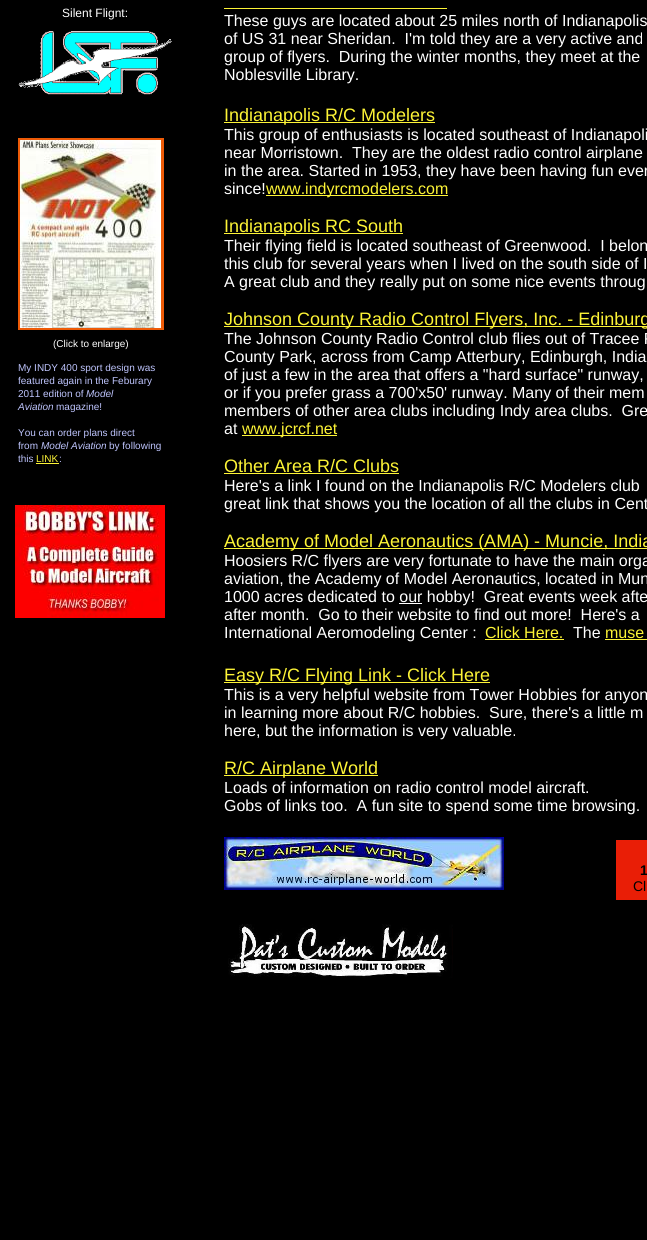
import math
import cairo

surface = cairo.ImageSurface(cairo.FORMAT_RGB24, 647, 1240)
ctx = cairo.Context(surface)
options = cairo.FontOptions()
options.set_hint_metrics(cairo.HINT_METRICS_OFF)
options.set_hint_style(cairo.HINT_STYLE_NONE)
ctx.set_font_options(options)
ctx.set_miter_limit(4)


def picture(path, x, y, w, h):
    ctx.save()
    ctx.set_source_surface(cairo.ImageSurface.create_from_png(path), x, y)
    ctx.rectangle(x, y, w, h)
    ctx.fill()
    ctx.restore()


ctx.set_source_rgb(0, 0, 0)
ctx.paint()
ctx.select_font_face("Liberation Sans")
ctx.set_font_size(12)
ctx.set_source_rgb(1, 1, 1)
ctx.move_to(62, 17)
ctx.show_text("Silent Flignt:")
ctx.set_source_rgb(0.992, 0.957, 0.212)
ctx.rectangle(224, 8, 223, 1)
ctx.fill()
ctx.set_font_size(16)
ctx.set_source_rgb(1, 1, 1)
ctx.move_to(224, 26)
ctx.show_text("These guys are located about 25 miles north of Indianapolis")
ctx.move_to(224, 44)
ctx.show_text("of US 31 near Sheridan.  I'm told they are a very active and")
ctx.move_to(224, 62)
ctx.show_text("group of flyers.  During the winter months, they meet at the")
ctx.move_to(224, 80)
ctx.show_text("Noblesville Library.")
ctx.set_source_rgb(0.992, 0.957, 0.212)
ctx.rectangle(224, 122, 211, 1)
ctx.fill()
ctx.set_font_size(18)
ctx.move_to(224, 121)
ctx.show_text("Indianapolis R/C Modelers")
ctx.set_font_size(16)
ctx.set_source_rgb(1, 1, 1)
ctx.move_to(224, 140)
ctx.show_text("This group of enthusiasts is located southeast of Indianapoli")
ctx.move_to(224, 158)
ctx.show_text("near Morristown.  They are the oldest radio control airplane")
ctx.move_to(224, 176)
ctx.show_text("in the area. Started in 1953, they have been having fun ever")
ctx.move_to(224, 194)
ctx.show_text("since!")
ctx.set_source_rgb(0.992, 0.957, 0.212)
ctx.rectangle(266, 195, 182, 1)
ctx.fill()
ctx.move_to(266, 194)
ctx.show_text("www.indyrcmodelers.com")
ctx.rectangle(224, 233, 179, 1)
ctx.fill()
ctx.set_font_size(18)
ctx.move_to(224, 232)
ctx.show_text("Indianapolis RC South")
ctx.set_font_size(16)
ctx.set_source_rgb(1, 1, 1)
ctx.move_to(224, 251)
ctx.show_text("Their flying field is located southeast of Greenwood.  I belon")
ctx.move_to(224, 269)
ctx.show_text("this club for several years when I lived on the south side of I")
ctx.move_to(224, 287)
ctx.show_text("A great club and they really put on some nice events throug")
ctx.set_source_rgb(0.992, 0.957, 0.212)
ctx.rectangle(224, 326, 423, 1)
ctx.fill()
ctx.set_font_size(18)
ctx.move_to(224, 325)
ctx.show_text("Johnson County Radio Control Flyers, Inc. - Edinburg")
ctx.set_font_size(16)
ctx.set_source_rgb(1, 1, 1)
ctx.move_to(224, 344)
ctx.show_text("The Johnson County Radio Control club flies out of Tracee F")
ctx.move_to(224, 362)
ctx.show_text("County Park, across from Camp Atterbury, Edinburgh, India")
ctx.move_to(224, 380)
ctx.show_text("of just a few in the area that offers a \"hard surface\" runway,")
ctx.move_to(224, 398)
ctx.show_text("or if you prefer grass a 700'x50' runway. Many of their mem")
ctx.move_to(224, 416)
ctx.show_text("members of other area clubs including Indy area clubs.  Gre")
ctx.move_to(224, 434)
ctx.show_text("at")
ctx.set_source_rgb(0.992, 0.957, 0.212)
ctx.rectangle(242, 435, 95, 1)
ctx.fill()
ctx.move_to(242, 434)
ctx.show_text("www.jcrcf.net")
ctx.set_font_size(18)
ctx.move_to(224, 472)
ctx.show_text("Other Area R/C Clubs")
ctx.rectangle(224, 473, 175, 1)
ctx.fill()
ctx.set_font_size(16)
ctx.set_source_rgb(1, 1, 1)
ctx.move_to(224, 491)
ctx.show_text("Here's a link I found on the Indianapolis R/C Modelers club")
ctx.move_to(224, 509)
ctx.show_text("great link that shows you the location of all the clubs in Cent")
ctx.set_source_rgb(0.992, 0.957, 0.212)
ctx.rectangle(224, 548, 423, 1)
ctx.fill()
ctx.set_font_size(18)
ctx.move_to(224, 547)
ctx.show_text("Academy of Model Aeronautics (AMA) - Muncie, India")
ctx.set_font_size(16)
ctx.set_source_rgb(1, 1, 1)
ctx.move_to(224, 566)
ctx.show_text("Hoosiers R/C flyers are very fortunate to have the main orga")
ctx.move_to(224, 584)
ctx.show_text("aviation, the Academy of Model Aeronautics, located in Mun")
ctx.move_to(224, 602)
ctx.show_text("1000 acres dedicated to our hobby!  Great events week afte")
ctx.rectangle(399, 603, 23, 1)
ctx.fill()
ctx.move_to(224, 620)
ctx.show_text("after month.  Go to their website to find out more!  Here's a")
ctx.move_to(224, 638)
ctx.show_text("International Aeromodeling Center :")
ctx.set_source_rgb(0.992, 0.957, 0.212)
ctx.move_to(485, 638)
ctx.show_text("Click Here.")
ctx.rectangle(485, 639, 79, 1)
ctx.fill()
ctx.set_source_rgb(1, 1, 1)
ctx.move_to(573, 638)
ctx.show_text("The")
ctx.set_source_rgb(0.992, 0.957, 0.212)
ctx.move_to(605, 638)
ctx.show_text("muse")
ctx.rectangle(605, 639, 42, 1)
ctx.fill()
picture("img1.png", 18, 31, 154, 64)
ctx.set_source_rgb(0.933, 0.357, 0.031)
ctx.rectangle(18, 138, 146, 192)
ctx.fill()
picture("img2.png", 20, 140, 141, 188)
ctx.set_font_size(10)
ctx.set_source_rgb(1, 1, 1)
ctx.move_to(53, 347)
ctx.show_text("(Click to enlarge)")
ctx.set_source_rgb(0.745, 0.769, 0.992)
ctx.move_to(18, 371)
ctx.show_text("My INDY 400 sport design was")
ctx.move_to(18, 384)
ctx.show_text("featured again in the Feburary")
ctx.move_to(18, 397)
ctx.show_text("2011 edition of")
ctx.select_font_face("Liberation Sans", cairo.FONT_SLANT_ITALIC)
ctx.move_to(86, 397)
ctx.show_text("Model")
ctx.move_to(18, 410)
ctx.show_text("Aviation")
ctx.select_font_face("Liberation Sans")
ctx.move_to(56, 410)
ctx.show_text("magazine!")
ctx.move_to(18, 436)
ctx.show_text("You can order plans direct")
ctx.move_to(18, 449)
ctx.show_text("from")
ctx.select_font_face("Liberation Sans", cairo.FONT_SLANT_ITALIC)
ctx.move_to(41, 449)
ctx.show_text("Model Aviation")
ctx.select_font_face("Liberation Sans")
ctx.move_to(109, 449)
ctx.show_text("by following")
ctx.move_to(18, 462)
ctx.show_text("this")
ctx.set_source_rgb(0.992, 0.957, 0.212)
ctx.move_to(36, 462)
ctx.show_text("LINK")
ctx.rectangle(36, 463, 23, 1)
ctx.fill()
ctx.set_source_rgb(0.745, 0.769, 0.992)
ctx.move_to(59, 462)
ctx.show_text(":")
picture("img3.png", 15, 505, 150, 113)
ctx.set_source_rgb(0.992, 0.957, 0.212)
ctx.rectangle(224, 682, 266, 1)
ctx.fill()
ctx.set_font_size(18)
ctx.move_to(224, 681)
ctx.show_text("Easy R/C Flying Link - Click Here")
ctx.set_font_size(16)
ctx.set_source_rgb(1, 1, 1)
ctx.move_to(224, 700)
ctx.show_text("This is a very helpful website from Tower Hobbies for anyon")
ctx.move_to(224, 718)
ctx.show_text("in learning more about R/C hobbies.  Sure, there's a little m")
ctx.move_to(224, 736)
ctx.show_text("here, but the information is very valuable.")
ctx.set_source_rgb(0.992, 0.957, 0.212)
ctx.rectangle(224, 775, 154, 1)
ctx.fill()
ctx.set_font_size(18)
ctx.move_to(224, 774)
ctx.show_text("R/C Airplane World")
ctx.set_font_size(16)
ctx.set_source_rgb(1, 1, 1)
ctx.move_to(224, 793)
ctx.show_text("Loads of information on radio control model aircraft.")
ctx.move_to(224, 811)
ctx.show_text("Gobs of links too.  A fun site to spend some time browsing.")
picture("img4.png", 224, 837, 280, 53)
ctx.set_source_rgb(0.914, 0.118, 0.027)
ctx.rectangle(616, 840, 31, 60)
ctx.fill()
ctx.select_font_face("Liberation Sans", cairo.FONT_SLANT_NORMAL, cairo.FONT_WEIGHT_BOLD)
ctx.set_font_size(14)
ctx.set_source_rgb(0, 0, 0)
ctx.move_to(640, 875)
ctx.show_text("1")
ctx.select_font_face("Liberation Sans")
ctx.move_to(633, 891)
ctx.show_text("Cl")
picture("img5.png", 228, 924, 225, 54)
surface.write_to_png("page.png")
